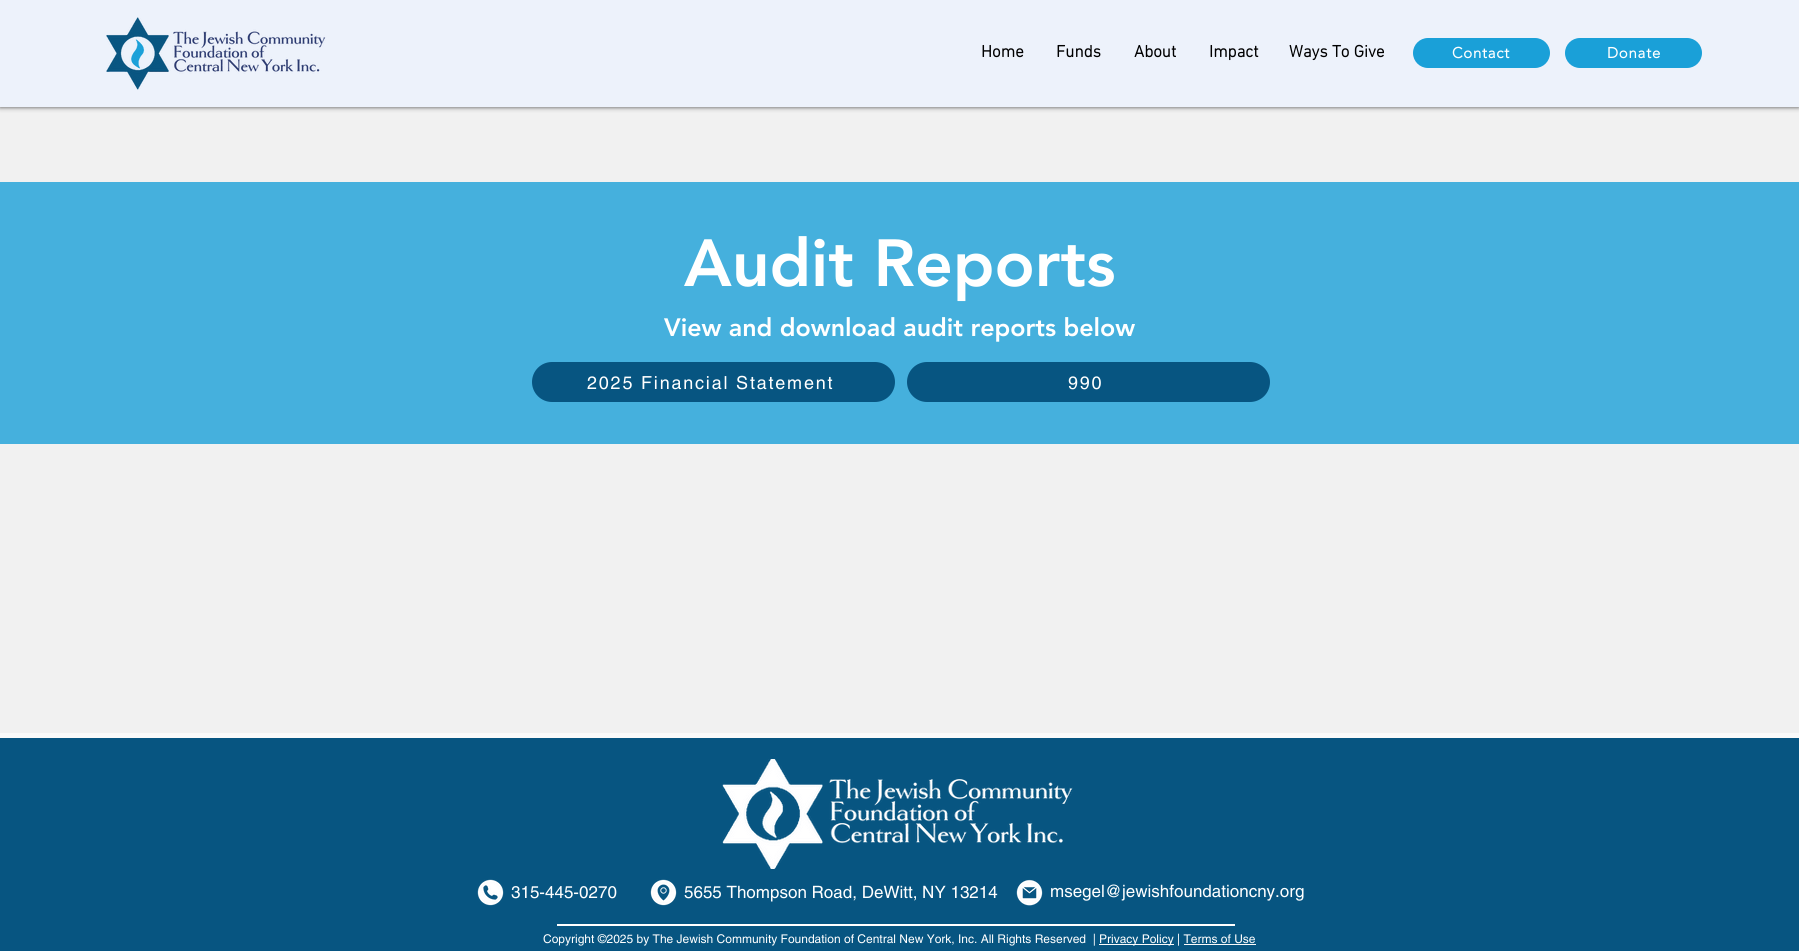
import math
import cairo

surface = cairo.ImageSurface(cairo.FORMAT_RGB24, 1799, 951)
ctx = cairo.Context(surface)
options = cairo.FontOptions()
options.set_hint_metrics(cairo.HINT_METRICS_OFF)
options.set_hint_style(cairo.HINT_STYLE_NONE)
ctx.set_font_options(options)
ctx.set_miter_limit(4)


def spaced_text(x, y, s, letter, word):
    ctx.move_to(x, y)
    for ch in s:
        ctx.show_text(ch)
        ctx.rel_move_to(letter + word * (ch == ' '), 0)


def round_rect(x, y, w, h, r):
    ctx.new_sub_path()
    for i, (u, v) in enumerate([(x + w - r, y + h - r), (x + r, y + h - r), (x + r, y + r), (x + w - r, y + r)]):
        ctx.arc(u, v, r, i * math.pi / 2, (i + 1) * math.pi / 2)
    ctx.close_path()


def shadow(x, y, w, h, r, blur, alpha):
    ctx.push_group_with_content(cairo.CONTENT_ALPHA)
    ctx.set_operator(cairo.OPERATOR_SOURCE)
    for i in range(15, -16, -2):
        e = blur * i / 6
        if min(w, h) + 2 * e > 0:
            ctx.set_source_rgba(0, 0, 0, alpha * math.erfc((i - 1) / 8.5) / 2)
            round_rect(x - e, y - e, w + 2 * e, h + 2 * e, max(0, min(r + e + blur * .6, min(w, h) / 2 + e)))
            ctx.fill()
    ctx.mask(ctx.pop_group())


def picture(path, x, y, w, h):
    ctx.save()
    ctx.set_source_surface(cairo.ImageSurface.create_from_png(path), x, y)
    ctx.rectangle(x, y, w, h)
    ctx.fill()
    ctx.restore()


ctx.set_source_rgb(0.945, 0.945, 0.945)
ctx.paint()
ctx.set_source_rgb(0, 0, 0)
shadow(0, 0, 1799, 107, 0, 2.5, 0.7)
ctx.set_source_rgb(0.929, 0.949, 0.984)
ctx.rectangle(0, 0, 1799, 107)
ctx.fill()
picture("img1.png", 106, 17, 220, 73)
ctx.select_font_face("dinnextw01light", cairo.FONT_SLANT_NORMAL, cairo.FONT_WEIGHT_BOLD)
ctx.set_font_size(17)
ctx.set_source_rgb(0, 0, 0)
ctx.move_to(981, 57)
ctx.show_text("Home")
ctx.move_to(1056, 57)
ctx.show_text("Funds")
ctx.move_to(1134, 57)
ctx.show_text("About")
ctx.move_to(1209, 57)
ctx.show_text("Impact")
ctx.move_to(1289, 57)
ctx.show_text("Ways To Give")
ctx.set_source_rgb(0.102, 0.627, 0.847)
round_rect(1413, 38, 137, 30, 15)
ctx.fill()
ctx.select_font_face("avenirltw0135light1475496", cairo.FONT_SLANT_NORMAL, cairo.FONT_WEIGHT_BOLD)
ctx.set_font_size(15)
ctx.set_source_rgb(1, 1, 1)
spaced_text(1452, 58, "Contact", 0.75, 0)
ctx.set_source_rgb(0.102, 0.627, 0.847)
round_rect(1565, 38, 137, 30, 15)
ctx.fill()
ctx.set_source_rgb(1, 1, 1)
spaced_text(1607, 58, "Donate", 0.75, 0)
ctx.set_source_rgb(0.271, 0.69, 0.867)
ctx.rectangle(0, 182, 1799, 262)
ctx.fill()
ctx.select_font_face("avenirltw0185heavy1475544 Black")
ctx.set_font_size(66)
ctx.set_source_rgb(1, 1, 1)
ctx.move_to(684, 286)
ctx.show_text("Audit Reports")
ctx.set_font_size(25)
ctx.move_to(664, 336)
ctx.show_text("View and download audit reports below")
ctx.set_source_rgb(0.031, 0.333, 0.506)
round_rect(532, 362, 363, 40, 20)
ctx.fill()
ctx.select_font_face("helvetica")
ctx.set_font_size(18)
ctx.set_source_rgb(1, 1, 1)
spaced_text(587, 389, "2025 Financial Statement", 1.8, 0)
ctx.set_source_rgb(0.031, 0.333, 0.506)
round_rect(907, 362, 363, 40, 20)
ctx.fill()
ctx.set_source_rgb(1, 1, 1)
spaced_text(1068, 389, "990", 1.8, 0)
ctx.set_source_rgb(0.031, 0.333, 0.506)
ctx.rectangle(0, 738, 1799, 213)
ctx.fill()
ctx.set_source_rgb(0.98, 0.98, 0.98)
ctx.rectangle(0, 733, 1799, 5)
ctx.fill()
picture("img2.png", 722, 759, 351, 110)
picture("img3.png", 477, 879, 27, 27)
ctx.set_font_size(17)
ctx.set_source_rgb(1, 1, 1)
ctx.move_to(511, 898)
ctx.show_text("315-445-0270")
picture("img4.png", 650, 879, 27, 27)
ctx.move_to(684, 898)
ctx.show_text("5655 Thompson Road, DeWitt, NY 13214")
picture("img5.png", 1016, 879, 27, 27)
ctx.move_to(1050, 897)
ctx.show_text("msegel@jewishfoundationcny.org")
ctx.rectangle(557, 924, 678, 2)
ctx.fill()
ctx.set_font_size(12)
ctx.move_to(543, 943)
ctx.show_text("Copyright ©2025 by The Jewish Community Foundation of Central New York, Inc. All Rights Reserved  |")
ctx.set_source_rgb(0.98, 0.98, 0.98)
ctx.rectangle(1099, 944, 75, 1)
ctx.fill()
ctx.set_source_rgb(1, 1, 1)
ctx.move_to(1099, 943)
ctx.show_text("Privacy Policy | Terms of Use")
ctx.set_source_rgb(0.98, 0.98, 0.98)
ctx.rectangle(1184, 944, 72, 1)
ctx.fill()
surface.write_to_png("page.png")
